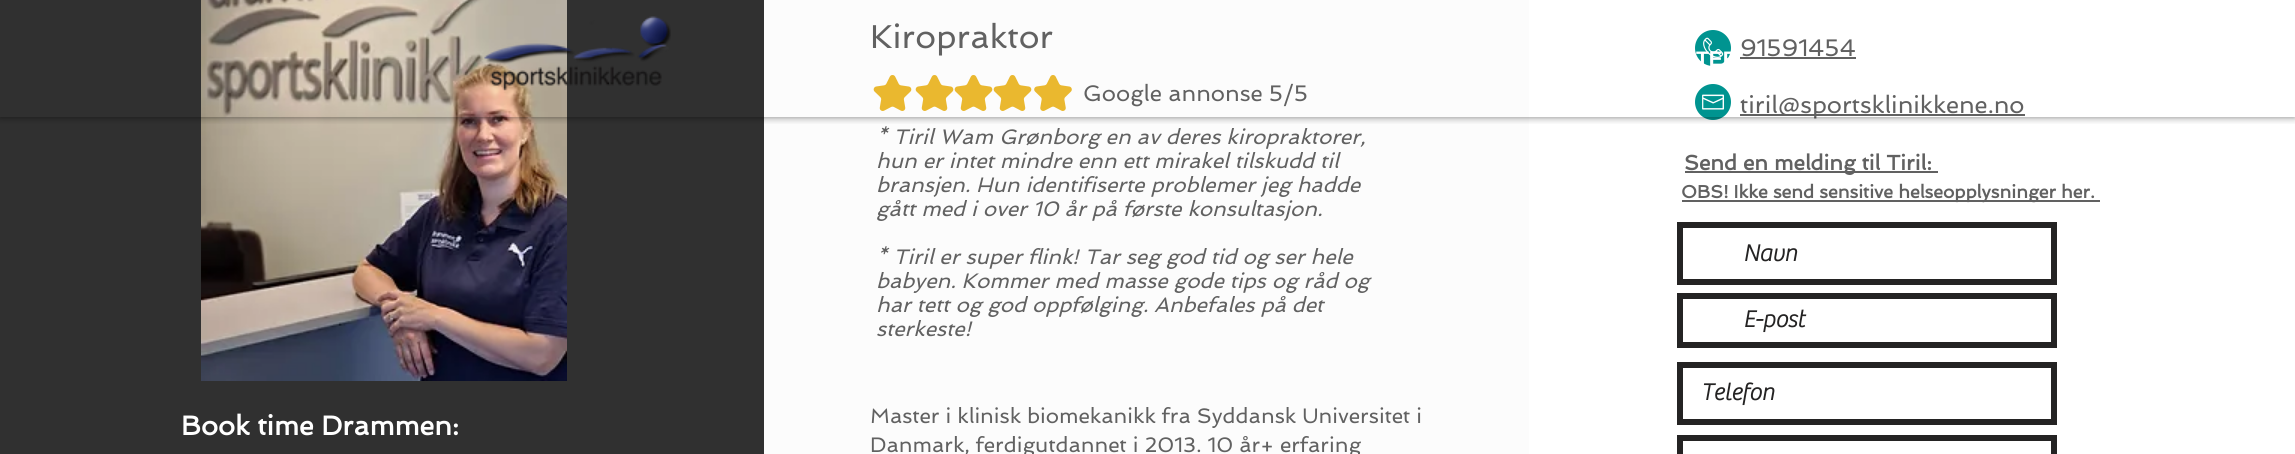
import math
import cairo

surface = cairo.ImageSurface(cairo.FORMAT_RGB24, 2295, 454)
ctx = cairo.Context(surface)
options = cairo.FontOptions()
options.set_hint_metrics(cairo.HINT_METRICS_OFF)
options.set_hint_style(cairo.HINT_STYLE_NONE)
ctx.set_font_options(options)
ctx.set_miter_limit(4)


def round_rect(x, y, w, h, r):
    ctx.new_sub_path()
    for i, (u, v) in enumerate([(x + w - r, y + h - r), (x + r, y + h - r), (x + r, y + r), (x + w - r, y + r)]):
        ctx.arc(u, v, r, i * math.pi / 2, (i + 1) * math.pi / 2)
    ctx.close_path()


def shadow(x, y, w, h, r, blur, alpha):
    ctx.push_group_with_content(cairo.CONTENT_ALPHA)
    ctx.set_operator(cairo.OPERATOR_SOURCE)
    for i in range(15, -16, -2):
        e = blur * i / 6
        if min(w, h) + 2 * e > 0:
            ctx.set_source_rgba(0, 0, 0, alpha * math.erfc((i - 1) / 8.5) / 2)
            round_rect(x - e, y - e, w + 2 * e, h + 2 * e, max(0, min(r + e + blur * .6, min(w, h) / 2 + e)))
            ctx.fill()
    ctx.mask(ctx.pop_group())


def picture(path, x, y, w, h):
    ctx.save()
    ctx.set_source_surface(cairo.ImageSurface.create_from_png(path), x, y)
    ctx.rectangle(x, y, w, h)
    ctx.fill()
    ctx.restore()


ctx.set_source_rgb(0.188, 0.188, 0.188)
ctx.paint()
ctx.set_source_rgb(0.988, 0.988, 0.988)
ctx.rectangle(764, 0, 765, 454)
ctx.fill()
ctx.select_font_face("Spinnaker")
ctx.set_font_size(33)
ctx.set_source_rgb(0.38, 0.38, 0.38)
ctx.move_to(870, 48)
ctx.show_text("Kiropraktor")
picture("img1.png", 873, 75, 39, 36)
picture("img1.png", 915, 75, 39, 36)
picture("img1.png", 954, 75, 39, 36)
picture("img1.png", 993, 75, 39, 36)
picture("img2.png", 1034, 75, 38, 36)
ctx.set_font_size(22.5)
ctx.move_to(1083, 101)
ctx.show_text("Google annonse 5/5")
ctx.select_font_face("Spinnaker", cairo.FONT_SLANT_ITALIC)
ctx.set_font_size(21)
ctx.move_to(876, 144)
ctx.show_text("* Tiril Wam Grønborg en av deres kiropraktorer,")
ctx.move_to(876, 168)
ctx.show_text("hun er intet mindre enn ett mirakel tilskudd til")
ctx.move_to(876, 192)
ctx.show_text("bransjen. Hun identifiserte problemer jeg hadde")
ctx.move_to(876, 216)
ctx.show_text("gått med i over 10 år på første konsultasjon.")
ctx.move_to(876, 264)
ctx.show_text("* Tiril er super flink! Tar seg god tid og ser hele")
ctx.move_to(876, 288)
ctx.show_text("babyen. Kommer med masse gode tips og råd og")
ctx.move_to(876, 312)
ctx.show_text("har tett og god oppfølging. Anbefales på det")
ctx.move_to(876, 336)
ctx.show_text("sterkeste!")
ctx.select_font_face("Spinnaker")
ctx.move_to(870, 423)
ctx.show_text("Master i klinisk biomekanikk fra Syddansk Universitet i")
ctx.move_to(870, 452)
ctx.show_text("Danmark, ferdigutdannet i 2013. 10 år+ erfaring")
ctx.set_source_rgb(1, 1, 1)
ctx.rectangle(1529, 0, 766, 454)
ctx.fill()
picture("img3.png", 1695, 30, 36, 36)
ctx.set_font_size(24)
ctx.set_source_rgb(0.38, 0.38, 0.38)
ctx.move_to(1740, 56)
ctx.show_text("91591454")
ctx.rectangle(1740, 57, 116, 2)
ctx.fill()
ctx.rectangle(1740, 114, 285, 2)
ctx.fill()
ctx.move_to(1740, 113)
ctx.show_text("tiril@sportsklinikkene.no")
picture("img4.png", 1695, 84, 36, 36)
ctx.rectangle(1685, 171, 253, 2)
ctx.fill()
ctx.select_font_face("Spinnaker", cairo.FONT_SLANT_NORMAL, cairo.FONT_WEIGHT_BOLD)
ctx.set_font_size(21)
ctx.move_to(1684, 170)
ctx.show_text("Send en melding til Tiril:")
ctx.rectangle(1682, 200, 418, 2)
ctx.fill()
ctx.set_font_size(18)
ctx.move_to(1681, 198)
ctx.show_text("OBS! Ikke send sensitive helseopplysninger her.")
ctx.rectangle(1680, 225, 374, 57)
ctx.set_source_rgb(0.141, 0.137, 0.137)
ctx.set_line_width(6)
ctx.stroke()
ctx.select_font_face("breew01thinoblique", cairo.FONT_SLANT_NORMAL, cairo.FONT_WEIGHT_BOLD)
ctx.set_font_size(24)
ctx.move_to(1743, 261)
ctx.show_text("Navn")
ctx.rectangle(1680, 296, 374, 49)
ctx.stroke()
ctx.move_to(1743, 327)
ctx.show_text("E-post")
ctx.rectangle(1680, 365, 374, 57)
ctx.stroke()
ctx.move_to(1701, 400)
ctx.show_text("Telefon")
ctx.rectangle(1680, 438, 374, 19)
ctx.stroke()
picture("img5.png", 201, 0, 366, 381)
ctx.select_font_face("Spinnaker", cairo.FONT_SLANT_NORMAL, cairo.FONT_WEIGHT_BOLD)
ctx.set_font_size(27)
ctx.set_source_rgb(1, 1, 1)
ctx.move_to(181, 435)
ctx.show_text("Book time Drammen:")
ctx.save()
ctx.rectangle(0, 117, 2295, 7)
ctx.clip()
ctx.set_source_rgb(0, 0, 0)
shadow(0, 0, 2295, 117, 0, 4, 0.5)
ctx.restore()
picture("img6.png", 484, 16, 187, 75)
ctx.select_font_face("Liberation Sans", cairo.FONT_SLANT_NORMAL, cairo.FONT_WEIGHT_BOLD)
ctx.set_font_size(21)
ctx.move_to(1696, 66)
ctx.show_text("TER")
surface.write_to_png("page.png")
